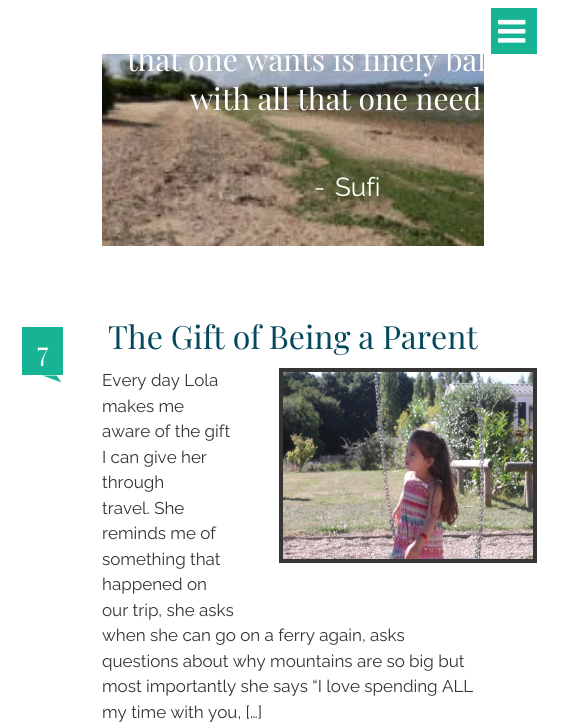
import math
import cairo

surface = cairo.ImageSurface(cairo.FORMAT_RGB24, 585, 724)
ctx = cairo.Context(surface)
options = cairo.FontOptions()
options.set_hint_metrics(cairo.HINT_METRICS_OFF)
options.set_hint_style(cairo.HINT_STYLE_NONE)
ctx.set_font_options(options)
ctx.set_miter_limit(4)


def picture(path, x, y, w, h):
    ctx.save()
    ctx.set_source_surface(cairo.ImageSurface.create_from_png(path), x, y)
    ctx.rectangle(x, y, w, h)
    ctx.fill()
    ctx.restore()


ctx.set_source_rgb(1, 1, 1)
ctx.paint()
ctx.set_source_rgb(0.086, 0.706, 0.584)
ctx.rectangle(491, 8, 46, 46)
ctx.fill()
picture("img1.png", 498, 19, 28, 24)
picture("img2.png", 102, 54, 382, 192)
ctx.select_font_face("Playfair Display")
ctx.set_font_size(30)
ctx.set_source_rgb(1, 1, 1)
ctx.move_to(127, 71)
ctx.show_text("that one wants is finely bal")
ctx.move_to(190, 110)
ctx.show_text("with all that one need")
ctx.select_font_face("Raleway")
ctx.set_font_size(26)
ctx.move_to(314, 196)
ctx.show_text("-")
ctx.move_to(335, 196)
ctx.show_text("Sufi")
ctx.select_font_face("Playfair Display")
ctx.set_font_size(32)
ctx.set_source_rgb(0.012, 0.282, 0.357)
ctx.move_to(108, 349)
ctx.show_text("The Gift of Being a Parent")
ctx.set_source_rgb(0.086, 0.706, 0.584)
ctx.rectangle(22, 327, 41, 48)
ctx.fill()
ctx.set_font_size(28)
ctx.set_source_rgb(1, 1, 1)
ctx.move_to(37, 362)
ctx.show_text("7")
ctx.set_source_rgb(0.086, 0.706, 0.584)
ctx.new_path()
ctx.move_to(42.5, 375.5)
ctx.line_to(56.5, 375.5)
ctx.line_to(61.5, 382.5)
ctx.close_path()
ctx.fill()
ctx.rectangle(281, 370, 254, 191)
ctx.set_source_rgb(0.208, 0.208, 0.208)
ctx.set_line_width(4)
ctx.stroke()
picture("img3.png", 283, 372, 250, 187)
ctx.select_font_face("Raleway")
ctx.set_font_size(17)
ctx.set_source_rgb(0.204, 0.204, 0.204)
ctx.move_to(102, 386)
ctx.show_text("Every day Lola")
ctx.move_to(102, 412)
ctx.show_text("makes me")
ctx.move_to(102, 437)
ctx.show_text("aware of the gift")
ctx.move_to(102, 463)
ctx.show_text("I can give her")
ctx.move_to(102, 488)
ctx.show_text("through")
ctx.move_to(102, 514)
ctx.show_text("travel. She")
ctx.move_to(102, 539)
ctx.show_text("reminds me of")
ctx.move_to(102, 565)
ctx.show_text("something that")
ctx.move_to(102, 590)
ctx.show_text("happened on")
ctx.move_to(102, 616)
ctx.show_text("our trip, she asks")
ctx.move_to(102, 641)
ctx.show_text("when she can go on a ferry again, asks")
ctx.move_to(102, 667)
ctx.show_text("questions about why mountains are so big but")
ctx.move_to(102, 692)
ctx.show_text("most importantly she says “I love spending ALL")
ctx.move_to(102, 718)
ctx.show_text("my time with you, […]")
surface.write_to_png("page.png")
